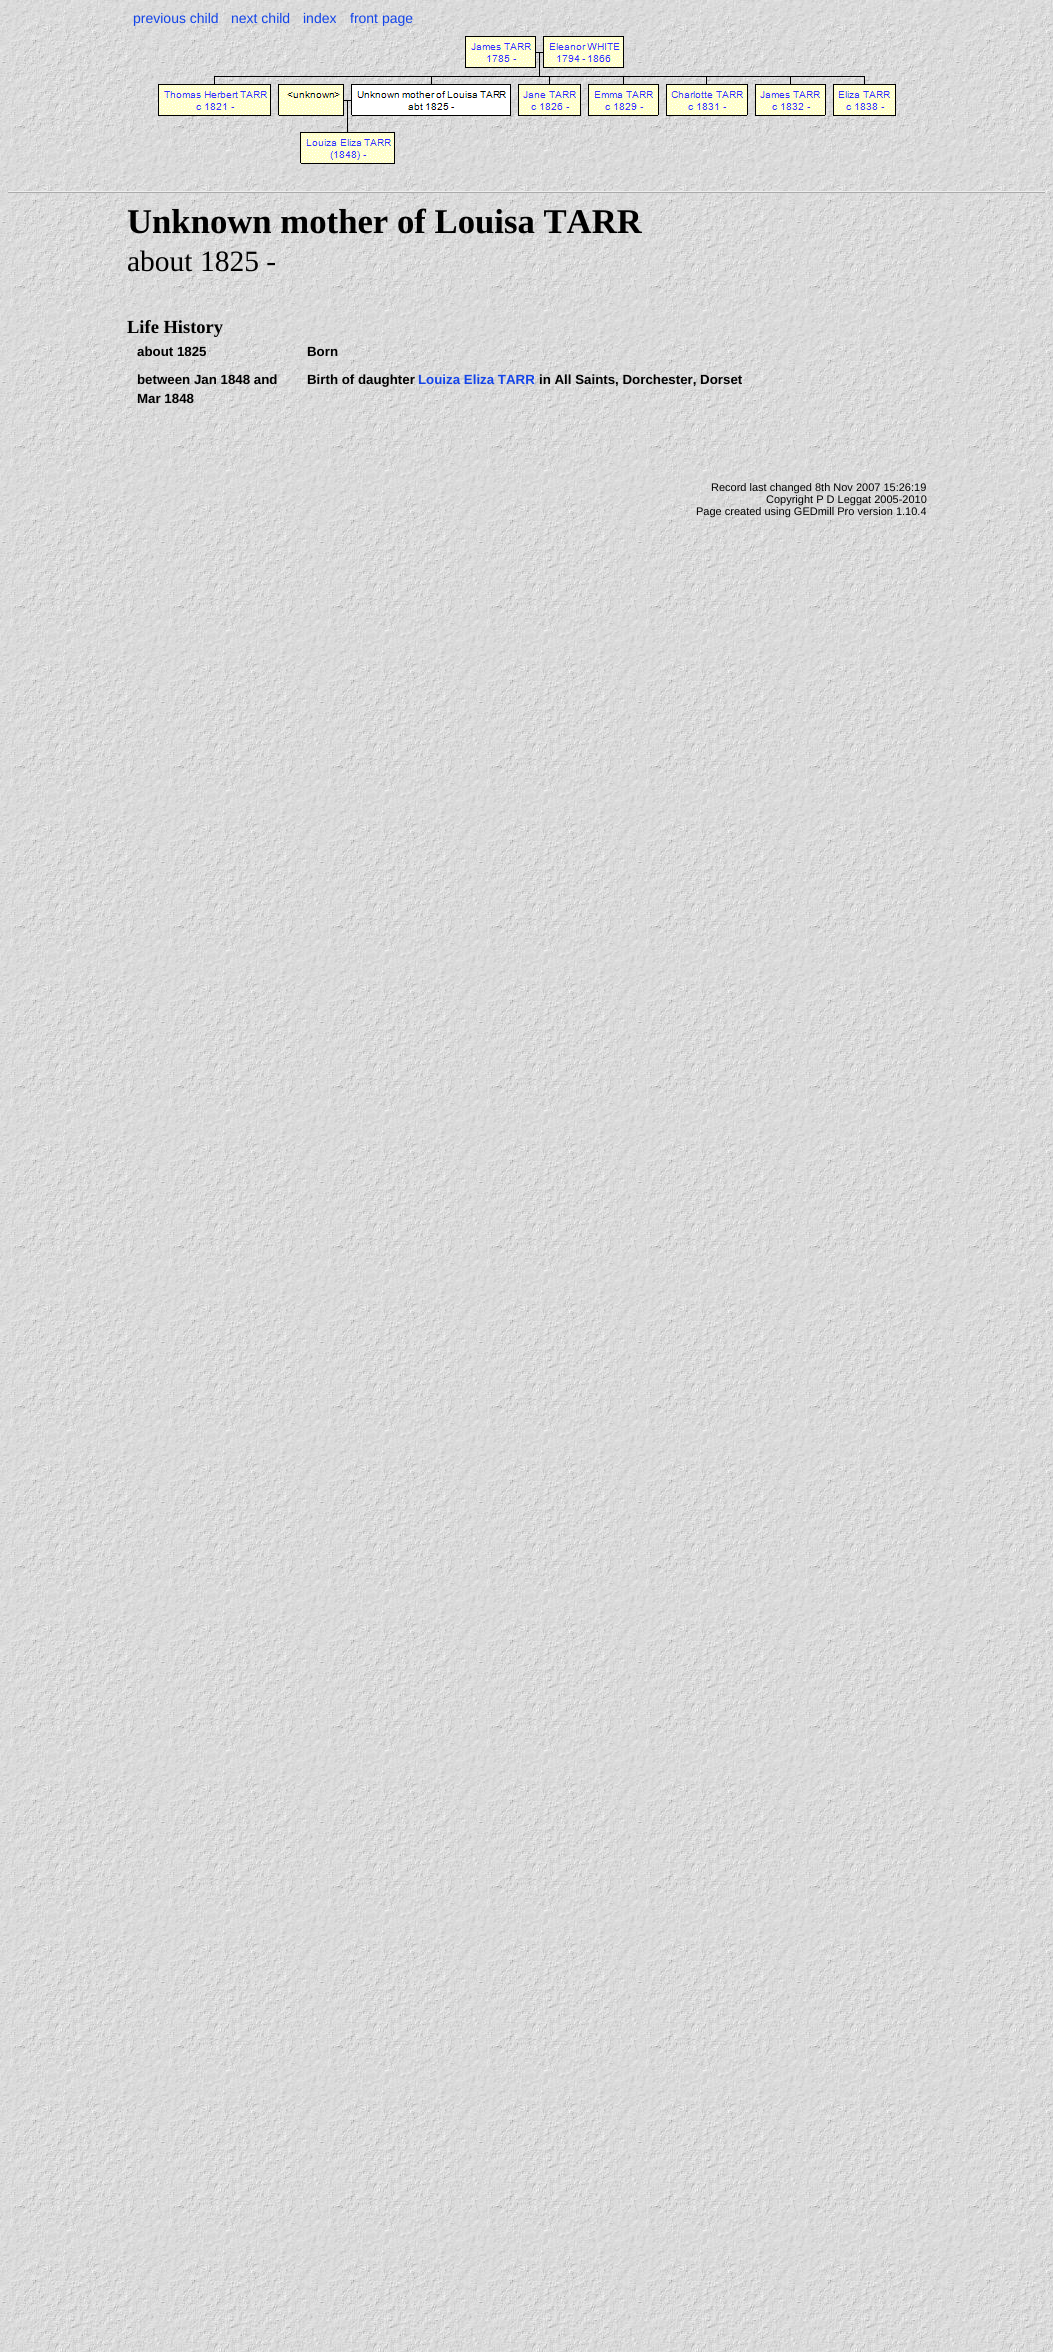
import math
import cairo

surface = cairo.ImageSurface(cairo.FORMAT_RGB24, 1053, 2352)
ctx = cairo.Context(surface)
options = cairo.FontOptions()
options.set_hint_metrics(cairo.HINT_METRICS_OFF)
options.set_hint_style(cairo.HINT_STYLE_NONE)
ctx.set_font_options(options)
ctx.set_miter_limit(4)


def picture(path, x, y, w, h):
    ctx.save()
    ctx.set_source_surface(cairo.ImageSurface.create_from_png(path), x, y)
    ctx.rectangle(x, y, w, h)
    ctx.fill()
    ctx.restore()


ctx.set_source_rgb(1, 1, 1)
ctx.paint()
picture("img1.png", 0, 0, 1053, 2352)
ctx.select_font_face("Liberation Sans")
ctx.set_font_size(14)
ctx.set_source_rgb(0.075, 0.267, 0.914)
ctx.move_to(133, 23)
ctx.show_text("previous child")
ctx.move_to(231, 23)
ctx.show_text("next child")
ctx.move_to(303, 23)
ctx.show_text("index")
ctx.move_to(350, 23)
ctx.show_text("front page")
picture("img2.png", 158, 36, 738, 128)
ctx.set_source_rgb(0.933, 0.933, 0.933)
ctx.rectangle(8, 191, 1037, 1)
ctx.fill()
ctx.set_source_rgb(0.667, 0.667, 0.667)
ctx.rectangle(8, 192, 1037, 1)
ctx.fill()
ctx.select_font_face("Liberation Serif", cairo.FONT_SLANT_NORMAL, cairo.FONT_WEIGHT_BOLD)
ctx.set_font_size(34.7)
ctx.set_source_rgb(0, 0, 0)
ctx.move_to(127, 233)
ctx.show_text("Unknown mother of Louisa TARR")
ctx.select_font_face("Liberation Serif")
ctx.set_font_size(29.5)
ctx.move_to(127, 271)
ctx.show_text("about 1825 -")
ctx.select_font_face("Liberation Serif", cairo.FONT_SLANT_NORMAL, cairo.FONT_WEIGHT_BOLD)
ctx.set_font_size(18.5)
ctx.move_to(127, 333)
ctx.show_text("Life History")
ctx.select_font_face("Liberation Sans", cairo.FONT_SLANT_NORMAL, cairo.FONT_WEIGHT_BOLD)
ctx.set_font_size(13.3)
ctx.move_to(137, 356)
ctx.show_text("about 1825")
ctx.move_to(307, 356)
ctx.show_text("Born")
ctx.move_to(137, 384)
ctx.show_text("between Jan 1848 and")
ctx.move_to(137, 403)
ctx.show_text("Mar 1848")
ctx.move_to(307, 384)
ctx.show_text("Birth of daughter")
ctx.set_source_rgb(0.075, 0.267, 0.914)
ctx.move_to(418, 384)
ctx.show_text("Louiza Eliza TARR")
ctx.set_source_rgb(0, 0, 0)
ctx.move_to(539, 384)
ctx.show_text("in All Saints, Dorchester, Dorset")
ctx.select_font_face("Liberation Sans")
ctx.set_font_size(11)
ctx.move_to(711, 491)
ctx.show_text("Record last changed 8th Nov 2007 15:26:19")
ctx.move_to(766, 503)
ctx.show_text("Copyright P D Leggat 2005-2010")
ctx.move_to(696, 515)
ctx.show_text("Page created using GEDmill Pro version 1.10.4")
surface.write_to_png("page.png")
